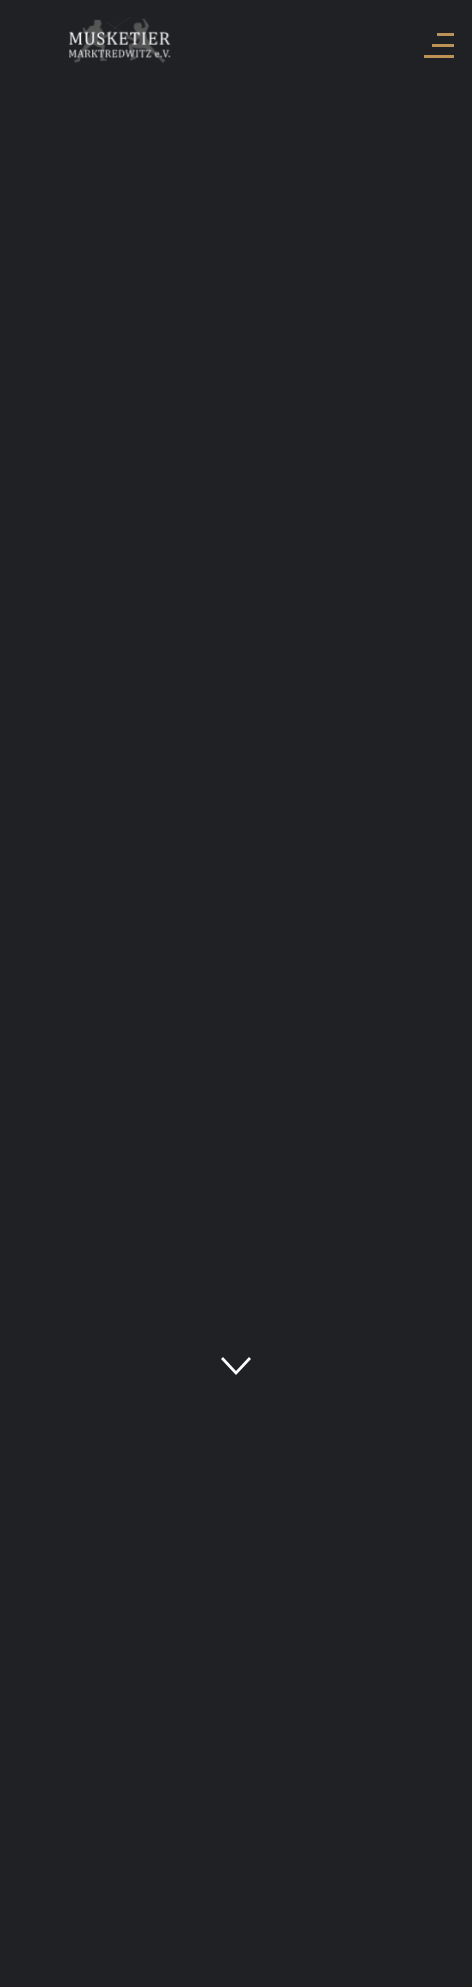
import math
import cairo

surface = cairo.ImageSurface(cairo.FORMAT_RGB24, 472, 1987)
ctx = cairo.Context(surface)
options = cairo.FontOptions()
options.set_hint_metrics(cairo.HINT_METRICS_OFF)
options.set_hint_style(cairo.HINT_STYLE_NONE)
ctx.set_font_options(options)
ctx.set_miter_limit(4)


def picture(path, x, y, w, h):
    ctx.save()
    ctx.set_source_surface(cairo.ImageSurface.create_from_png(path), x, y)
    ctx.rectangle(x, y, w, h)
    ctx.fill()
    ctx.restore()


ctx.set_source_rgb(0.122, 0.129, 0.145)
ctx.paint()
picture("img1.png", 69, 17, 102, 46)
ctx.set_source_rgb(0.737, 0.576, 0.333)
ctx.rectangle(432, 44, 22, 3)
ctx.fill()
ctx.rectangle(437, 33, 17, 3)
ctx.fill()
ctx.rectangle(424, 55, 30, 3)
ctx.fill()
ctx.set_source_rgb(1, 1, 1)
ctx.new_path()
ctx.move_to(249, 1357)
ctx.line_to(251, 1359)
ctx.line_to(236, 1375)
ctx.line_to(221, 1359)
ctx.line_to(223, 1357)
ctx.line_to(236, 1371)
ctx.close_path()
ctx.fill()
surface.write_to_png("page.png")
